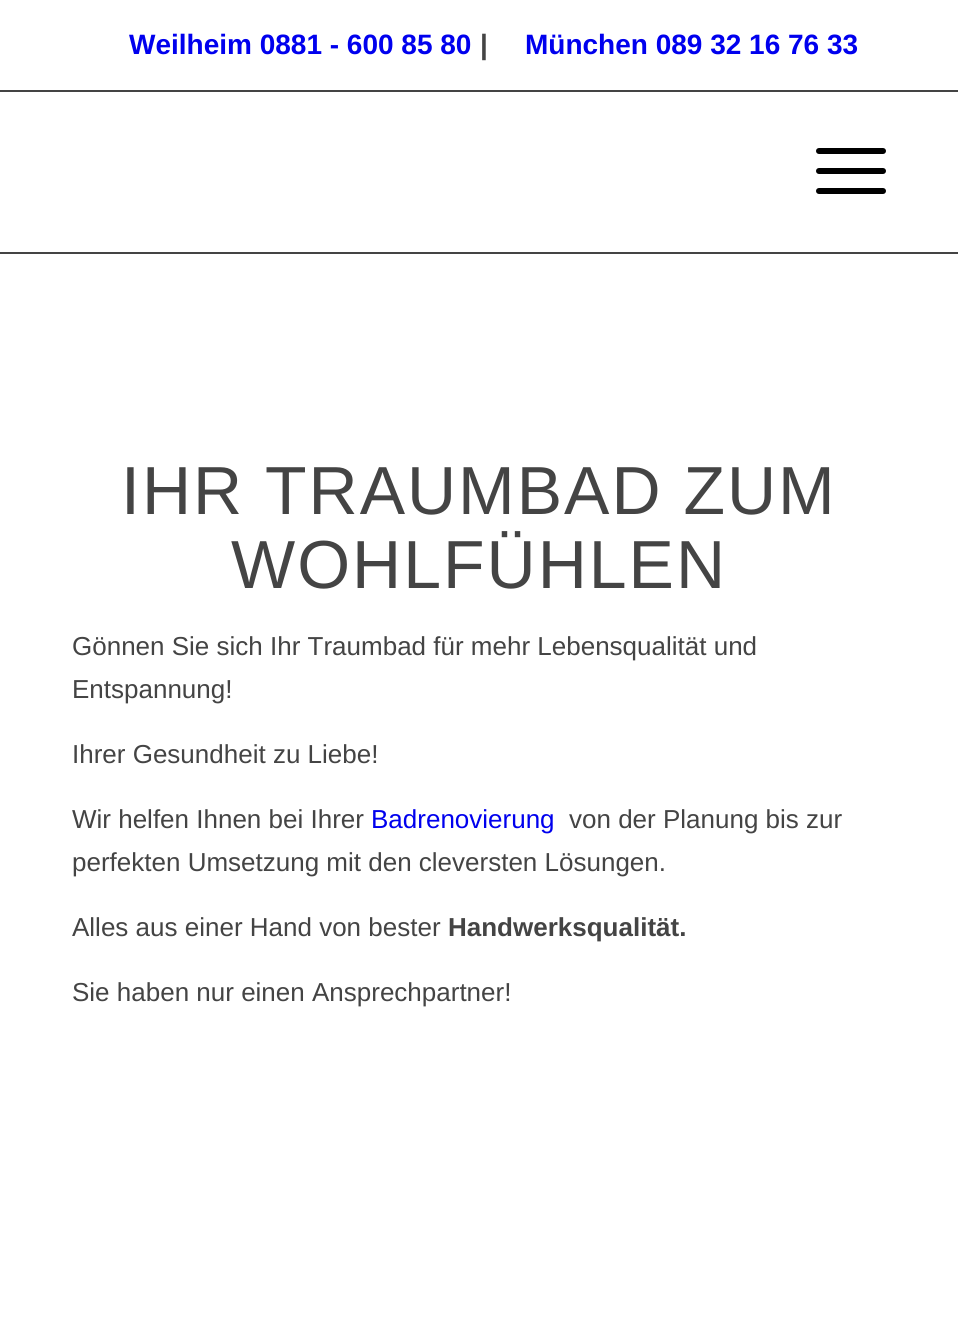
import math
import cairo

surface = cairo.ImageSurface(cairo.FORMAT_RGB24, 958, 1326)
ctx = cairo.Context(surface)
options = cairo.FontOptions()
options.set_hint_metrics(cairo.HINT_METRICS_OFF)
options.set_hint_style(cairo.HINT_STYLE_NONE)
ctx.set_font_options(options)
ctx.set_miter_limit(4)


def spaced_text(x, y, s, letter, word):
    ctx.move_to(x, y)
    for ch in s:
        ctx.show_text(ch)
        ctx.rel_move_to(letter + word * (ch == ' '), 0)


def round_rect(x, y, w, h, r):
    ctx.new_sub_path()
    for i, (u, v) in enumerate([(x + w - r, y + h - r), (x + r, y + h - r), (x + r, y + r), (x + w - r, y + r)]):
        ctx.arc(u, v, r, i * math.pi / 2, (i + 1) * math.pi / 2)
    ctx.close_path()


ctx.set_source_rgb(1, 1, 1)
ctx.paint()
ctx.select_font_face("Liberation Sans", cairo.FONT_SLANT_NORMAL, cairo.FONT_WEIGHT_BOLD)
ctx.set_font_size(28)
ctx.set_source_rgb(0, 0, 0.933)
ctx.move_to(129, 54)
ctx.show_text("Weilheim 0881 - 600 85 80")
ctx.set_source_rgb(0.267, 0.267, 0.267)
ctx.move_to(480, 54)
ctx.show_text("|")
ctx.set_source_rgb(0, 0, 0.933)
ctx.move_to(525, 54)
ctx.show_text("München 089 32 16 76 33")
ctx.set_source_rgb(0.267, 0.267, 0.267)
ctx.rectangle(0, 90, 958, 2)
ctx.fill()
ctx.rectangle(0, 252, 958, 2)
ctx.fill()
ctx.set_source_rgb(0, 0, 0)
round_rect(816, 168, 70, 6, 3)
ctx.fill()
round_rect(816, 148, 70, 6, 3)
ctx.fill()
round_rect(816, 188, 70, 6, 3)
ctx.fill()
ctx.select_font_face("Liberation Sans")
ctx.set_font_size(68)
ctx.set_source_rgb(0.267, 0.267, 0.267)
spaced_text(121, 514, "IHR TRAUMBAD ZUM", 2, 0)
spaced_text(231, 588, "WOHLFÜHLEN", 2, 0)
ctx.set_font_size(26)
ctx.move_to(72, 655)
ctx.show_text("Gönnen Sie sich Ihr Traumbad für mehr Lebensqualität und")
ctx.move_to(72, 698)
ctx.show_text("Entspannung!")
ctx.move_to(72, 763)
ctx.show_text("Ihrer Gesundheit zu Liebe!")
ctx.move_to(72, 828)
ctx.show_text("Wir helfen Ihnen bei Ihrer")
ctx.set_source_rgb(0, 0, 0.933)
ctx.move_to(371, 828)
ctx.show_text("Badrenovierung")
ctx.set_source_rgb(0.267, 0.267, 0.267)
ctx.move_to(569, 828)
ctx.show_text("von der Planung bis zur")
ctx.move_to(72, 871)
ctx.show_text("perfekten Umsetzung mit den cleversten Lösungen.")
ctx.move_to(72, 936)
ctx.show_text("Alles aus einer Hand von bester")
ctx.select_font_face("Liberation Sans", cairo.FONT_SLANT_NORMAL, cairo.FONT_WEIGHT_BOLD)
ctx.move_to(448, 936)
ctx.show_text("Handwerksqualität.")
ctx.select_font_face("Liberation Sans")
ctx.move_to(72, 1001)
ctx.show_text("Sie haben nur einen Ansprechpartner!")
surface.write_to_png("page.png")
